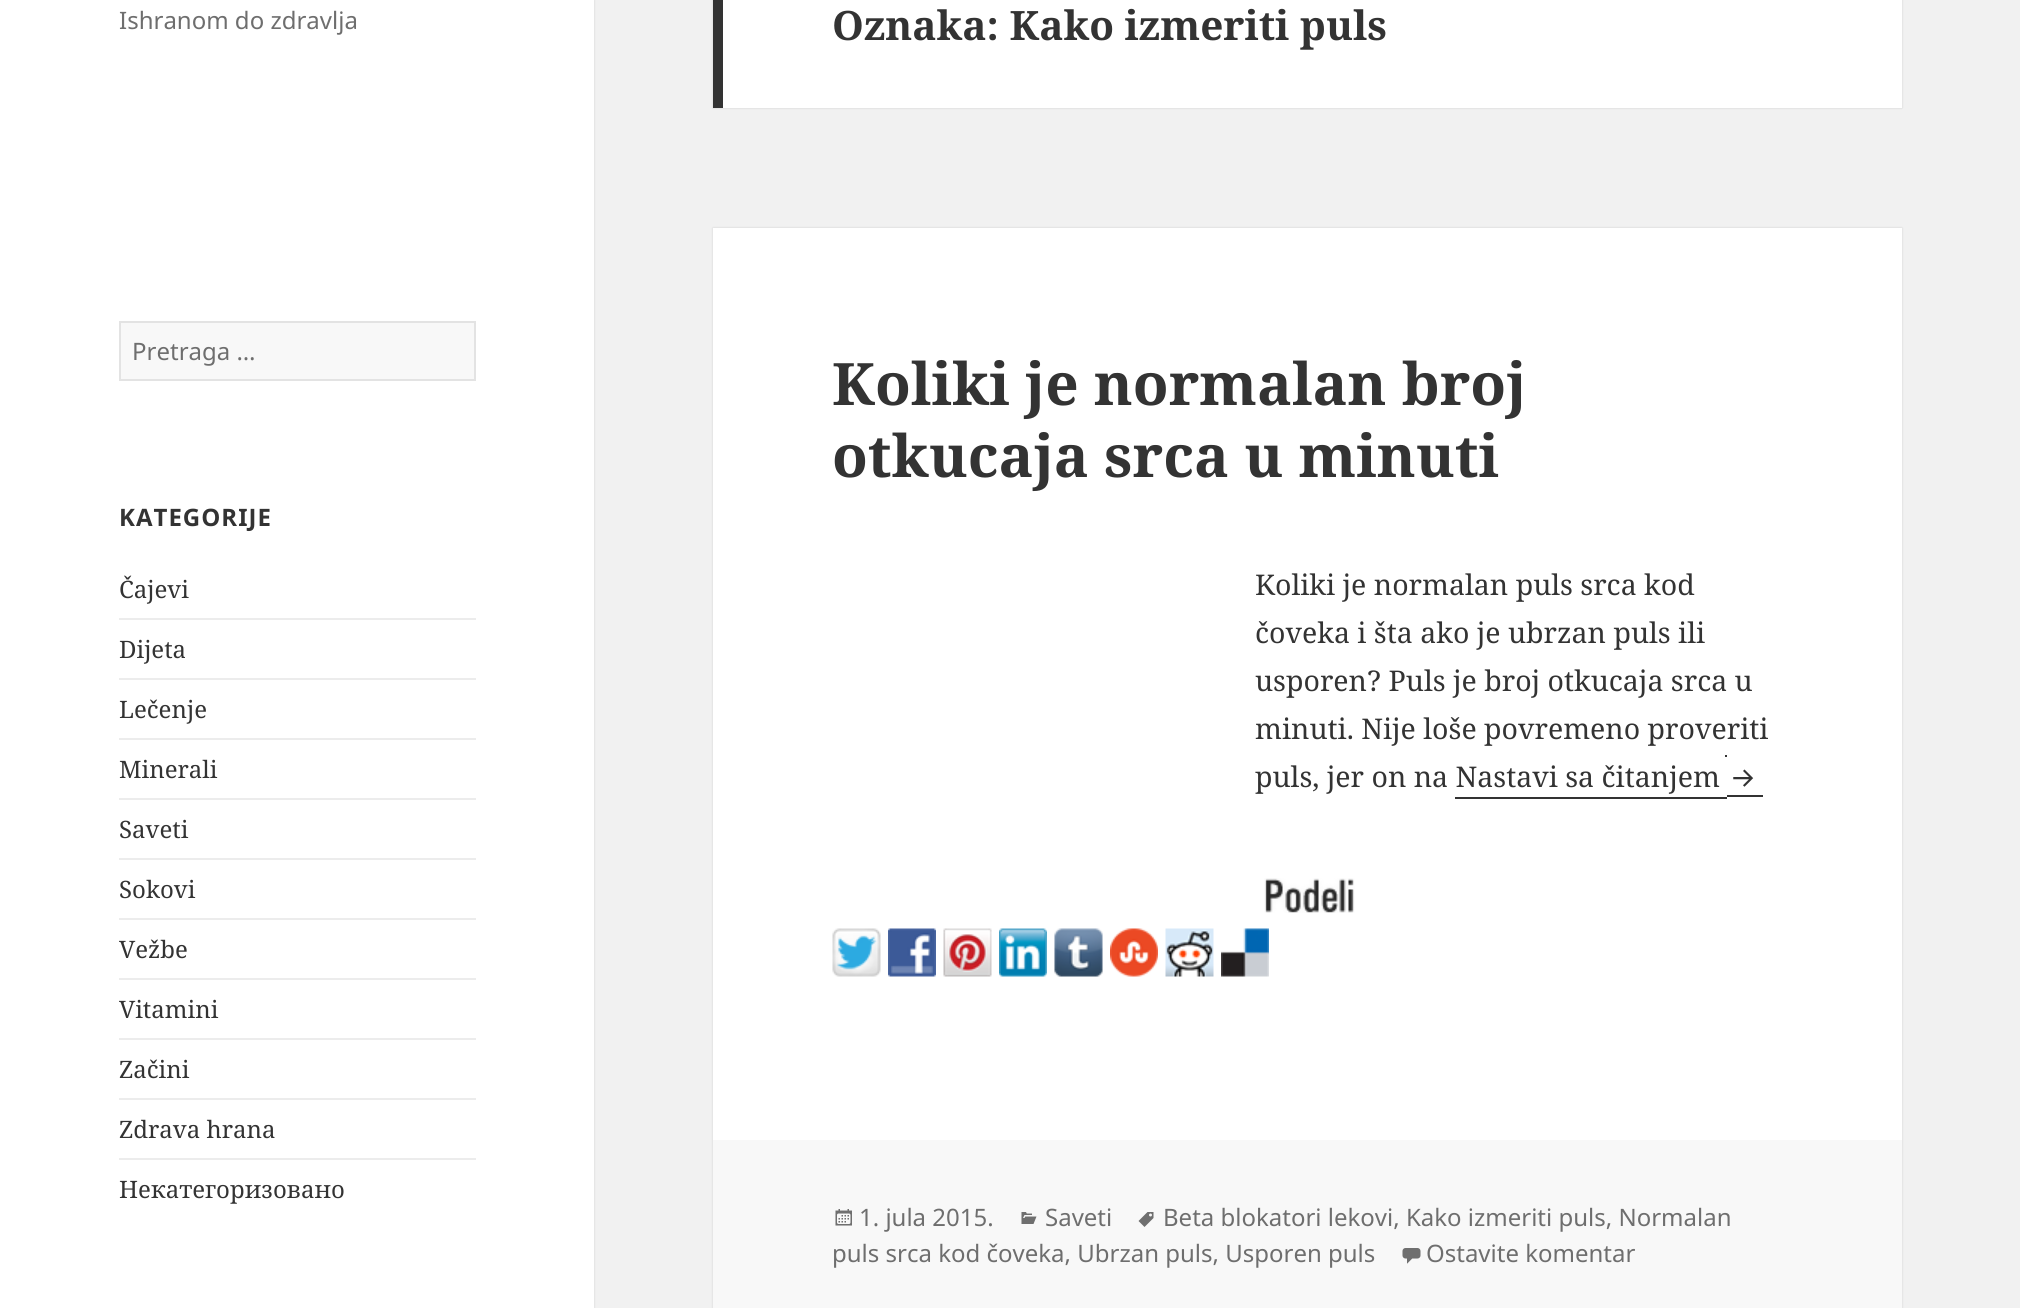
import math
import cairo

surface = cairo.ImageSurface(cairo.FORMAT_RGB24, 2020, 1308)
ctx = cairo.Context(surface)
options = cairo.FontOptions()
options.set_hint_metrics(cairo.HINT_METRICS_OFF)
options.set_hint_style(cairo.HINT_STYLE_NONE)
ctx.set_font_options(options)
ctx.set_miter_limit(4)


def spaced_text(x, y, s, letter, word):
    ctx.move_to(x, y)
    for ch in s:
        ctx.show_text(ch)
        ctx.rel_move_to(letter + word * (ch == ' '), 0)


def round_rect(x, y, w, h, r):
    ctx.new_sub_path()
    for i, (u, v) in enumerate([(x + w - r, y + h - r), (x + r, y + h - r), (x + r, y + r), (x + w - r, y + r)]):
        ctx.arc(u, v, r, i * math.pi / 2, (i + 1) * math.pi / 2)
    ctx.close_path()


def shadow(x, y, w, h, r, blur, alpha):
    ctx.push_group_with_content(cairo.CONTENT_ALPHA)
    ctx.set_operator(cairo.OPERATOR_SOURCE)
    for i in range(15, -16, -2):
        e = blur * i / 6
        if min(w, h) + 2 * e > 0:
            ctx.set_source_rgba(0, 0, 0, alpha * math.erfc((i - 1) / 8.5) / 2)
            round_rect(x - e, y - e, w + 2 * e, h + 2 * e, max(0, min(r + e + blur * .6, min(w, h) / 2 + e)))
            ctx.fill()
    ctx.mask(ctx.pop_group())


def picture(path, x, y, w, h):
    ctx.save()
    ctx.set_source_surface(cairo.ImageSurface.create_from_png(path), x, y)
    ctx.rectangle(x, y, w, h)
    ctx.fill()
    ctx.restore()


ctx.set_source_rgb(0.945, 0.945, 0.945)
ctx.paint()
ctx.set_source_rgb(0, 0, 0)
shadow(0, 0, 594, 1308, 0, 1, 0.15)
ctx.set_source_rgb(1, 1, 1)
ctx.rectangle(0, 0, 594, 1308)
ctx.fill()
ctx.select_font_face("Noto Sans")
ctx.set_font_size(24)
ctx.set_source_rgb(0.431, 0.431, 0.431)
ctx.move_to(119, 29)
ctx.show_text("Ishranom do zdravlja")
ctx.set_source_rgb(0.969, 0.969, 0.969)
ctx.rectangle(120, 322, 355, 58)
ctx.fill_preserve()
ctx.set_source_rgb(0.89, 0.89, 0.89)
ctx.stroke()
ctx.set_source_rgb(0.431, 0.431, 0.431)
ctx.move_to(132, 360)
ctx.show_text("Pretraga …")
ctx.select_font_face("Noto Sans", cairo.FONT_SLANT_NORMAL, cairo.FONT_WEIGHT_BOLD)
ctx.set_source_rgb(0.2, 0.2, 0.2)
spaced_text(119, 526, "KATEGORIJE", 1, 0)
ctx.select_font_face("Noto Serif")
ctx.move_to(119, 598)
ctx.show_text("Čajevi")
ctx.set_source_rgb(0.922, 0.922, 0.922)
ctx.rectangle(119, 618, 357, 2)
ctx.fill()
ctx.set_source_rgb(0.2, 0.2, 0.2)
ctx.move_to(119, 658)
ctx.show_text("Dijeta")
ctx.set_source_rgb(0.922, 0.922, 0.922)
ctx.rectangle(119, 678, 357, 2)
ctx.fill()
ctx.set_source_rgb(0.2, 0.2, 0.2)
ctx.move_to(119, 718)
ctx.show_text("Lečenje")
ctx.set_source_rgb(0.922, 0.922, 0.922)
ctx.rectangle(119, 738, 357, 2)
ctx.fill()
ctx.set_source_rgb(0.2, 0.2, 0.2)
ctx.move_to(119, 778)
ctx.show_text("Minerali")
ctx.set_source_rgb(0.922, 0.922, 0.922)
ctx.rectangle(119, 798, 357, 2)
ctx.fill()
ctx.set_source_rgb(0.2, 0.2, 0.2)
ctx.move_to(119, 838)
ctx.show_text("Saveti")
ctx.set_source_rgb(0.922, 0.922, 0.922)
ctx.rectangle(119, 858, 357, 2)
ctx.fill()
ctx.set_source_rgb(0.2, 0.2, 0.2)
ctx.move_to(119, 898)
ctx.show_text("Sokovi")
ctx.set_source_rgb(0.922, 0.922, 0.922)
ctx.rectangle(119, 918, 357, 2)
ctx.fill()
ctx.set_source_rgb(0.2, 0.2, 0.2)
ctx.move_to(119, 958)
ctx.show_text("Vežbe")
ctx.set_source_rgb(0.922, 0.922, 0.922)
ctx.rectangle(119, 978, 357, 2)
ctx.fill()
ctx.set_source_rgb(0.2, 0.2, 0.2)
ctx.move_to(119, 1018)
ctx.show_text("Vitamini")
ctx.set_source_rgb(0.922, 0.922, 0.922)
ctx.rectangle(119, 1038, 357, 2)
ctx.fill()
ctx.set_source_rgb(0.2, 0.2, 0.2)
ctx.move_to(119, 1078)
ctx.show_text("Začini")
ctx.set_source_rgb(0.922, 0.922, 0.922)
ctx.rectangle(119, 1098, 357, 2)
ctx.fill()
ctx.set_source_rgb(0.2, 0.2, 0.2)
ctx.move_to(119, 1138)
ctx.show_text("Zdrava hrana")
ctx.set_source_rgb(0.922, 0.922, 0.922)
ctx.rectangle(119, 1158, 357, 2)
ctx.fill()
ctx.set_source_rgb(0.2, 0.2, 0.2)
ctx.move_to(119, 1198)
ctx.show_text("Некатегоризовано")
ctx.set_source_rgb(0, 0, 0)
shadow(713, -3, 1189, 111, 0, 1, 0.15)
ctx.set_source_rgb(1, 1, 1)
ctx.rectangle(723, 0, 1179, 108)
ctx.fill()
ctx.set_source_rgb(0.2, 0.2, 0.2)
ctx.rectangle(713, 0, 10, 108)
ctx.fill()
ctx.select_font_face("Noto Serif", cairo.FONT_SLANT_NORMAL, cairo.FONT_WEIGHT_BOLD)
ctx.set_font_size(40.5)
ctx.move_to(832, 40)
ctx.show_text("Oznaka: Kako izmeriti puls")
ctx.set_source_rgb(0, 0, 0)
shadow(713, 228, 1189, 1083, 0, 1, 0.15)
ctx.set_source_rgb(1, 1, 1)
ctx.rectangle(713, 228, 1189, 912)
ctx.fill()
ctx.set_font_size(58.5)
ctx.set_source_rgb(0.2, 0.2, 0.2)
ctx.move_to(832, 405)
ctx.show_text("Koliki je normalan broj")
ctx.move_to(832, 477)
ctx.show_text("otkucaja srca u minuti")
ctx.select_font_face("Noto Serif")
ctx.set_font_size(28.5)
ctx.move_to(1255, 595)
ctx.show_text("Koliki je normalan puls srca kod")
ctx.move_to(1255, 643)
ctx.show_text("čoveka i šta ako je ubrzan puls ili")
ctx.move_to(1255, 691)
ctx.show_text("usporen? Puls je broj otkucaja srca u")
ctx.move_to(1255, 739)
ctx.show_text("minuti. Nije loše povremeno proveriti")
ctx.rectangle(1455, 797, 272, 2)
ctx.fill()
ctx.rectangle(1725, 755, 2, 2)
ctx.fill()
ctx.rectangle(1727, 795, 36, 2)
ctx.fill()
picture("img1.png", 1733, 769, 21, 18)
ctx.move_to(1255, 787)
ctx.show_text("puls, jer on na Nastavi sa čitanjem")
picture("img2.png", 1264, 878, 91, 35)
picture("img3.png", 832, 928, 49, 49)
picture("img4.png", 888, 928, 48, 49)
picture("img5.png", 943, 928, 49, 49)
picture("img6.png", 999, 928, 48, 49)
picture("img7.png", 1054, 928, 49, 49)
picture("img8.png", 1110, 928, 48, 49)
picture("img9.png", 1165, 928, 49, 49)
picture("img10.png", 1221, 928, 48, 49)
ctx.set_source_rgb(0.969, 0.969, 0.969)
ctx.rectangle(713, 1140, 1189, 168)
ctx.fill()
picture("img11.png", 1138, 1212, 16, 15)
ctx.select_font_face("Noto Sans")
ctx.set_font_size(24)
ctx.set_source_rgb(0.431, 0.431, 0.431)
ctx.move_to(1163, 1226)
ctx.show_text("Beta blokatori lekovi, Kako izmeriti puls, Normalan")
ctx.move_to(832, 1262)
ctx.show_text("puls srca kod čoveka, Ubrzan puls, Usporen puls")
picture("img12.png", 835, 1209, 17, 17)
ctx.move_to(859, 1226)
ctx.show_text("1. jula 2015.")
picture("img13.png", 1021, 1212, 16, 12)
ctx.move_to(1045, 1226)
ctx.show_text("Saveti")
picture("img14.png", 1402, 1248, 19, 16)
ctx.move_to(1426, 1262)
ctx.show_text("Ostavite komentar")
surface.write_to_png("page.png")
